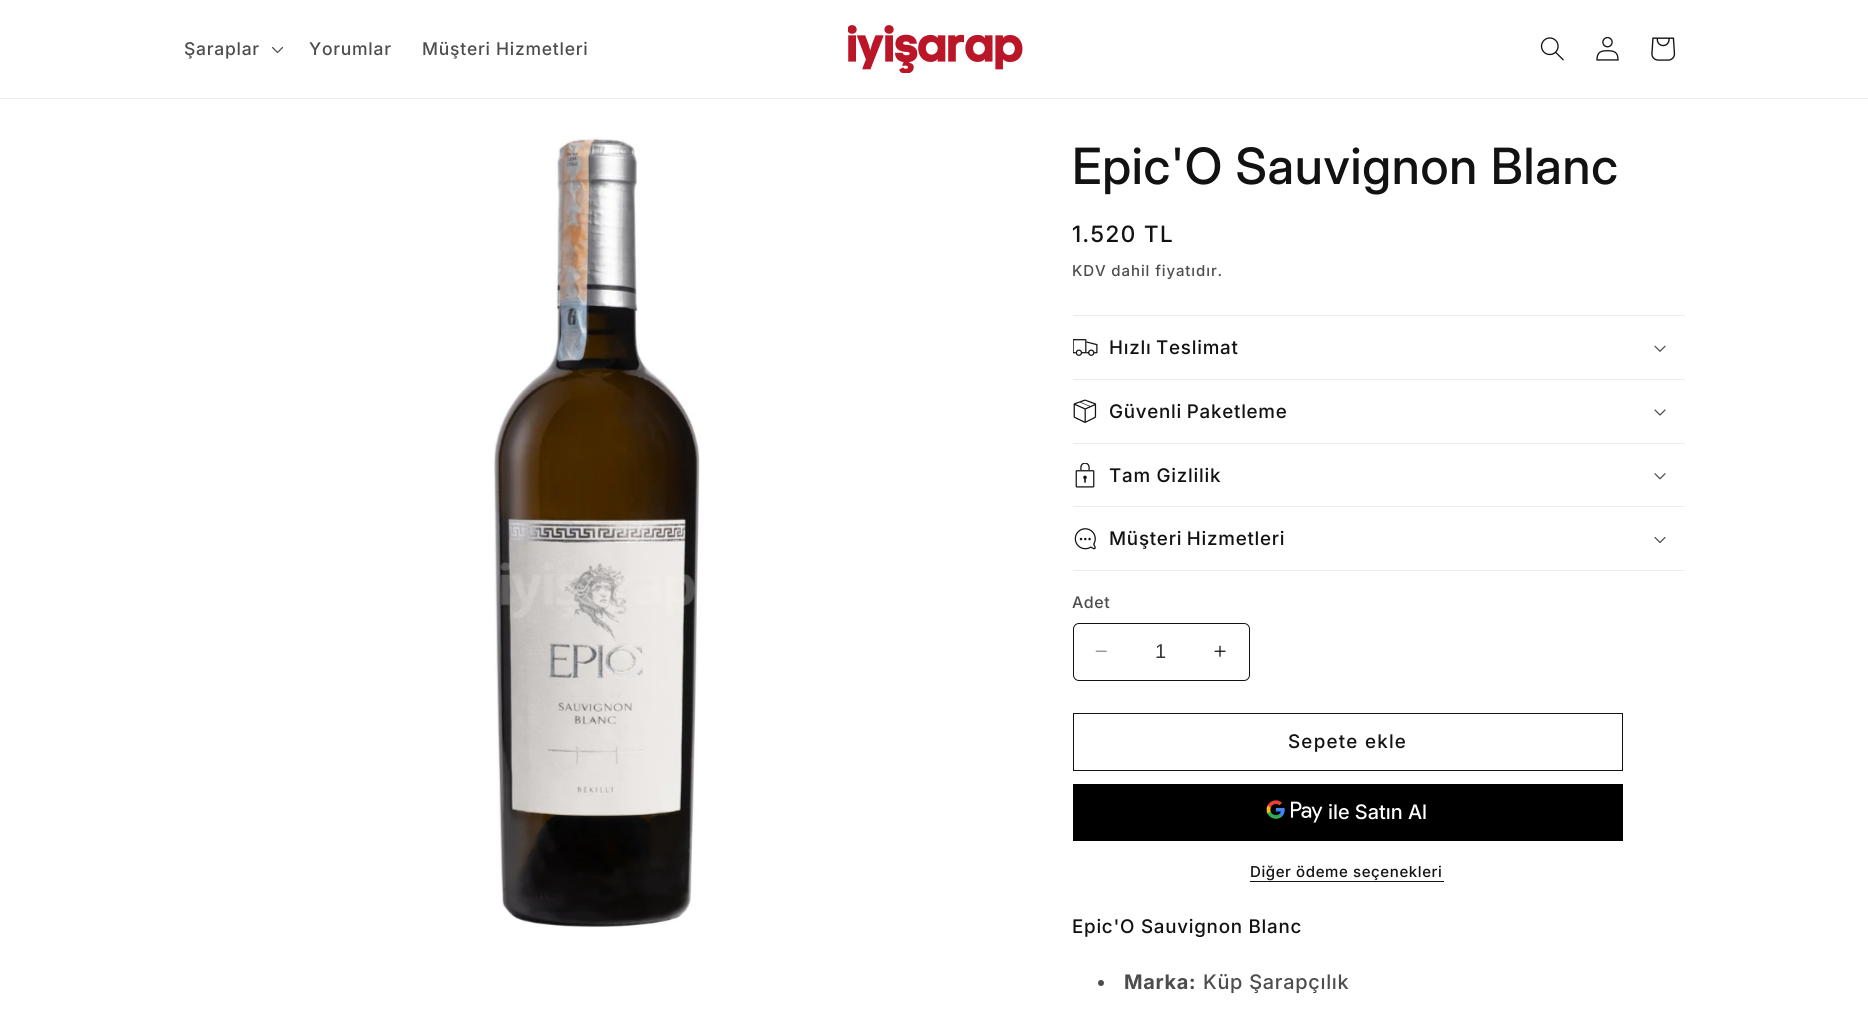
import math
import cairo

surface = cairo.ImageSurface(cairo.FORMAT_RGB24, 1868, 1010)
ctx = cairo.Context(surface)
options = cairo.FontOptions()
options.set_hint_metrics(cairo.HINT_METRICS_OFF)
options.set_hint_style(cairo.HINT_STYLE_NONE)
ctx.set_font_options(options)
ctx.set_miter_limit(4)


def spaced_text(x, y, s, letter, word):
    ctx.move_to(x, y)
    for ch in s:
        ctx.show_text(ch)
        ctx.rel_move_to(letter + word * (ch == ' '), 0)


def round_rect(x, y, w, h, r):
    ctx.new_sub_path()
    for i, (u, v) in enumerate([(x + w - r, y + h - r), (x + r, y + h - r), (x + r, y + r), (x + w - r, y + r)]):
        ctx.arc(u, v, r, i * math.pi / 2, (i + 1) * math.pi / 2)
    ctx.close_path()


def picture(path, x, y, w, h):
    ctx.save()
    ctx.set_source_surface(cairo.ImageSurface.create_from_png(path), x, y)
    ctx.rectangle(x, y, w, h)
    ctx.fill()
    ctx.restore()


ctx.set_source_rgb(1, 1, 1)
ctx.paint()
ctx.set_source_rgb(0.925, 0.925, 0.925)
ctx.rectangle(0, 98, 1868, 1)
ctx.fill()
ctx.select_font_face("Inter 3 Medium")
ctx.set_font_size(17.5)
ctx.set_source_rgb(0.302, 0.302, 0.302)
spaced_text(184, 55, "Şaraplar", 0.75, 0)
picture("img1.png", 271, 46, 13, 8)
spaced_text(309, 55, "Yorumlar", 0.75, 0)
spaced_text(422, 55, "Müşteri Hizmetleri", 0.75, 0)
picture("img2.png", 848, 25, 175, 48)
picture("img3.png", 1540, 37, 24, 24)
picture("img4.png", 1596, 36, 23, 25)
picture("img5.png", 1651, 37, 25, 24)
picture("img6.png", 493, 138, 207, 790)
ctx.select_font_face("Inter Medium")
ctx.set_font_size(50)
ctx.set_source_rgb(0.071, 0.071, 0.071)
spaced_text(1072, 184, "Epic'O Sauvignon Blanc", 0.75, 0)
ctx.select_font_face("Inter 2 Medium")
ctx.set_font_size(22.5)
spaced_text(1072, 242, "1.520 TL", 1.5, 0)
ctx.select_font_face("Inter 3 Medium")
ctx.set_font_size(15)
ctx.set_source_rgb(0.302, 0.302, 0.302)
spaced_text(1072, 276, "KDV dahil fiyatıdır.", 0.9, 0)
ctx.set_source_rgb(0.925, 0.925, 0.925)
ctx.rectangle(1073, 315, 612, 1)
ctx.fill()
ctx.rectangle(1073, 379, 612, 1)
ctx.fill()
picture("img7.png", 1073, 339, 25, 17)
ctx.set_font_size(18.75)
ctx.set_source_rgb(0.071, 0.071, 0.071)
spaced_text(1109, 354, "Hızlı Teslimat", 0.75, -1)
picture("img8.png", 1654, 345, 12, 7)
ctx.set_source_rgb(0.925, 0.925, 0.925)
ctx.rectangle(1073, 443, 612, 1)
ctx.fill()
picture("img9.png", 1073, 399, 24, 24)
ctx.set_source_rgb(0.071, 0.071, 0.071)
spaced_text(1109, 418, "Güvenli Paketleme", 0.75, -1)
picture("img10.png", 1654, 409, 12, 7)
ctx.set_source_rgb(0.925, 0.925, 0.925)
ctx.rectangle(1073, 506, 612, 1)
ctx.fill()
picture("img11.png", 1075, 463, 20, 25)
ctx.set_source_rgb(0.071, 0.071, 0.071)
spaced_text(1109, 482, "Tam Gizlilik", 0.75, 0)
picture("img12.png", 1654, 473, 12, 7)
ctx.set_source_rgb(0.925, 0.925, 0.925)
ctx.rectangle(1073, 570, 612, 1)
ctx.fill()
picture("img13.png", 1074, 528, 22, 22)
ctx.set_source_rgb(0.071, 0.071, 0.071)
spaced_text(1109, 545, "Müşteri Hizmetleri", 0.75, -1)
picture("img14.png", 1654, 537, 12, 6)
ctx.set_font_size(16)
ctx.set_source_rgb(0.302, 0.302, 0.302)
spaced_text(1072, 608, "Adet", 0.5, 0)
picture("img15.png", 1095, 650, 12, 2)
picture("img16.png", 1214, 645, 12, 12)
round_rect(1073.5, 623.5, 176, 57, 5.5)
ctx.set_source_rgb(0.071, 0.071, 0.071)
ctx.set_line_width(1)
ctx.stroke()
ctx.select_font_face("Liberation Sans")
ctx.set_font_size(20)
ctx.set_source_rgb(0.212, 0.212, 0.212)
ctx.move_to(1155, 658)
ctx.show_text("1")
ctx.rectangle(1073.5, 713.5, 549, 57)
ctx.set_source_rgb(0.071, 0.071, 0.071)
ctx.stroke()
ctx.select_font_face("Inter 3 Medium")
ctx.set_font_size(18.75)
spaced_text(1288, 748, "Sepete ekle", 1.25, 0)
ctx.set_source_rgb(0, 0, 0)
ctx.rectangle(1073, 784, 550, 57)
ctx.fill()
picture("img17.png", 1266, 800, 57, 23)
ctx.select_font_face("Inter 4 Medium")
ctx.set_font_size(20)
ctx.set_source_rgb(1, 1, 1)
ctx.move_to(1328, 819)
ctx.show_text("ile Satın Al")
ctx.select_font_face("Inter 3 Medium")
ctx.set_font_size(15)
ctx.set_source_rgb(0.071, 0.071, 0.071)
spaced_text(1250, 877, "Diğer ödeme seçenekleri", 0.6, 0)
ctx.rectangle(1250, 881, 194, 1)
ctx.fill()
ctx.set_font_size(18.75)
spaced_text(1072, 933, "Epic'O Sauvignon Blanc", 0.75, 0)
ctx.set_source_rgb(0.302, 0.302, 0.302)
ctx.new_path()
ctx.arc(1101, 983, 3, 0, 2 * math.pi)
ctx.fill()
ctx.select_font_face("Inter", cairo.FONT_SLANT_NORMAL, cairo.FONT_WEIGHT_BOLD)
ctx.set_font_size(20)
spaced_text(1124, 989, "Marka:", 0.75, 0)
ctx.select_font_face("Inter 4 Medium")
spaced_text(1203, 989, "Küp Şarapçılık", 0.75, 0)
surface.write_to_png("page.png")
